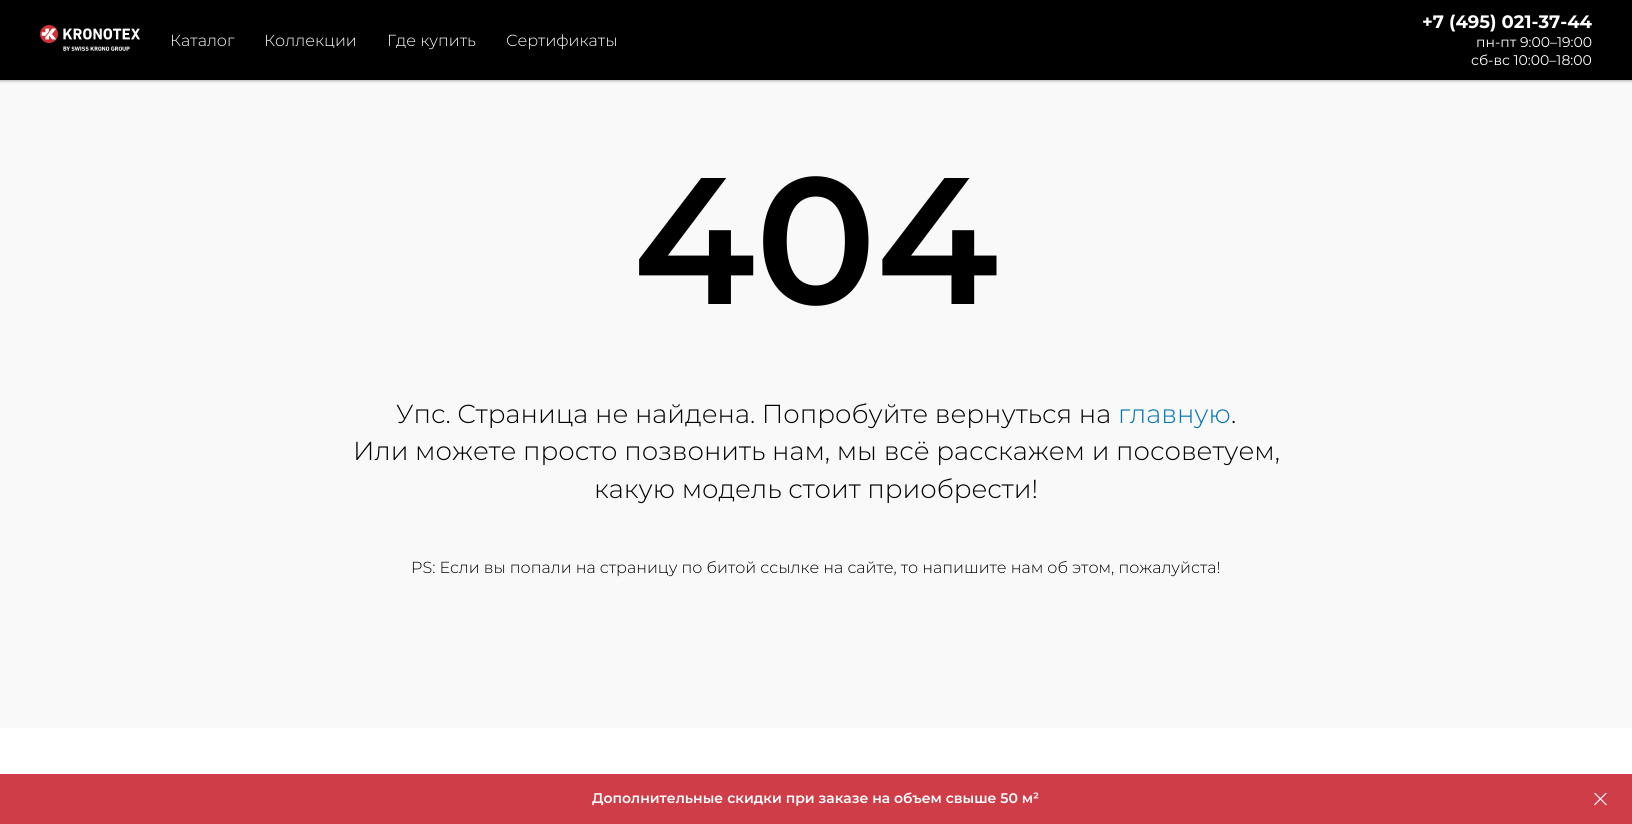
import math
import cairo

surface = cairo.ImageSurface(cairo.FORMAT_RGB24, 1632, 824)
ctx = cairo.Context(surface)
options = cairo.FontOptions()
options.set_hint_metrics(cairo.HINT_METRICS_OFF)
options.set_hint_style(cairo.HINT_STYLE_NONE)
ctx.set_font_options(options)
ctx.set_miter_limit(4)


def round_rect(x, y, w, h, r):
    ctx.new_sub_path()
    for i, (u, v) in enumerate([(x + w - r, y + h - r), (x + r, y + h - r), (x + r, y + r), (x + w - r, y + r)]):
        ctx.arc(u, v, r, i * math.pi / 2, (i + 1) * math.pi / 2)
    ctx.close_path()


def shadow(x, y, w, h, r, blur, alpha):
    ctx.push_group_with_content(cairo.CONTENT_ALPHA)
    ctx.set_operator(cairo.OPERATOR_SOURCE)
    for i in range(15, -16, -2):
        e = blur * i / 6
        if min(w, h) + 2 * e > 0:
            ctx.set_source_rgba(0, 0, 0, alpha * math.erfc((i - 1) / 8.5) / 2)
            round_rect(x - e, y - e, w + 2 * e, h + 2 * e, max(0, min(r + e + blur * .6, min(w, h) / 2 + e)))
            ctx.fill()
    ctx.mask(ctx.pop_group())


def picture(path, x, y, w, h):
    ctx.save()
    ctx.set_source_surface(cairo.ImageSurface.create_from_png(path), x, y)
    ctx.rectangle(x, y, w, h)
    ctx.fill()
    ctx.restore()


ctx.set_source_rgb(1, 1, 1)
ctx.paint()
ctx.set_source_rgb(0.976, 0.976, 0.976)
ctx.rectangle(0, 80, 1632, 648)
ctx.fill()
ctx.set_source_rgb(0, 0, 0)
shadow(0, 1, 1632, 80, 0, 1.5, 0.3)
ctx.set_source_rgb(0, 0, 0)
ctx.rectangle(0, 0, 1632, 80)
ctx.fill()
picture("img1.png", 40, 25, 100, 26)
ctx.select_font_face("Montserrat Light")
ctx.set_font_size(16)
ctx.set_source_rgb(1, 1, 1)
ctx.move_to(170, 46)
ctx.show_text("Каталог")
ctx.move_to(264, 46)
ctx.show_text("Коллекции")
ctx.move_to(387, 46)
ctx.show_text("Где купить")
ctx.move_to(506, 46)
ctx.show_text("Сертификаты")
ctx.select_font_face("Montserrat", cairo.FONT_SLANT_NORMAL, cairo.FONT_WEIGHT_BOLD)
ctx.set_font_size(18)
ctx.move_to(1422, 28)
ctx.show_text("+7 (495) 021-37-44")
ctx.select_font_face("Montserrat")
ctx.set_font_size(14)
ctx.move_to(1476, 47)
ctx.show_text("пн-пт 9:00–19:00")
ctx.move_to(1471, 65)
ctx.show_text("сб-вс 10:00–18:00")
ctx.select_font_face("Montserrat SemiBold")
ctx.set_font_size(180)
ctx.set_source_rgb(0, 0, 0)
ctx.move_to(633, 304)
ctx.show_text("404")
ctx.select_font_face("Montserrat Light")
ctx.set_font_size(26)
ctx.move_to(396, 423)
ctx.show_text("Упс. Страница не найдена. Попробуйте вернуться на")
ctx.set_source_rgb(0, 0.459, 0.706)
ctx.move_to(1118, 423)
ctx.show_text("главную")
ctx.set_source_rgb(0, 0, 0)
ctx.move_to(1231, 423)
ctx.show_text(".")
ctx.move_to(353, 460)
ctx.show_text("Или можете просто позвонить нам, мы всё расскажем и посоветуем,")
ctx.move_to(594, 498)
ctx.show_text("какую модель стоит приобрести!")
ctx.set_font_size(16)
ctx.move_to(411, 573)
ctx.show_text("PS: Если вы попали на страницу по битой ссылке на сайте, то напишите нам об этом, пожалуйста!")
ctx.set_source_rgb(0.812, 0.239, 0.282)
ctx.rectangle(0, 774, 1632, 50)
ctx.fill()
ctx.select_font_face("Montserrat SemiBold")
ctx.set_font_size(14)
ctx.set_source_rgb(1, 1, 1)
ctx.move_to(592, 803)
ctx.show_text("Дополнительные скидки при заказе на объем свыше 50 м²")
picture("img2.png", 1594, 793, 13, 13)
surface.write_to_png("page.png")
